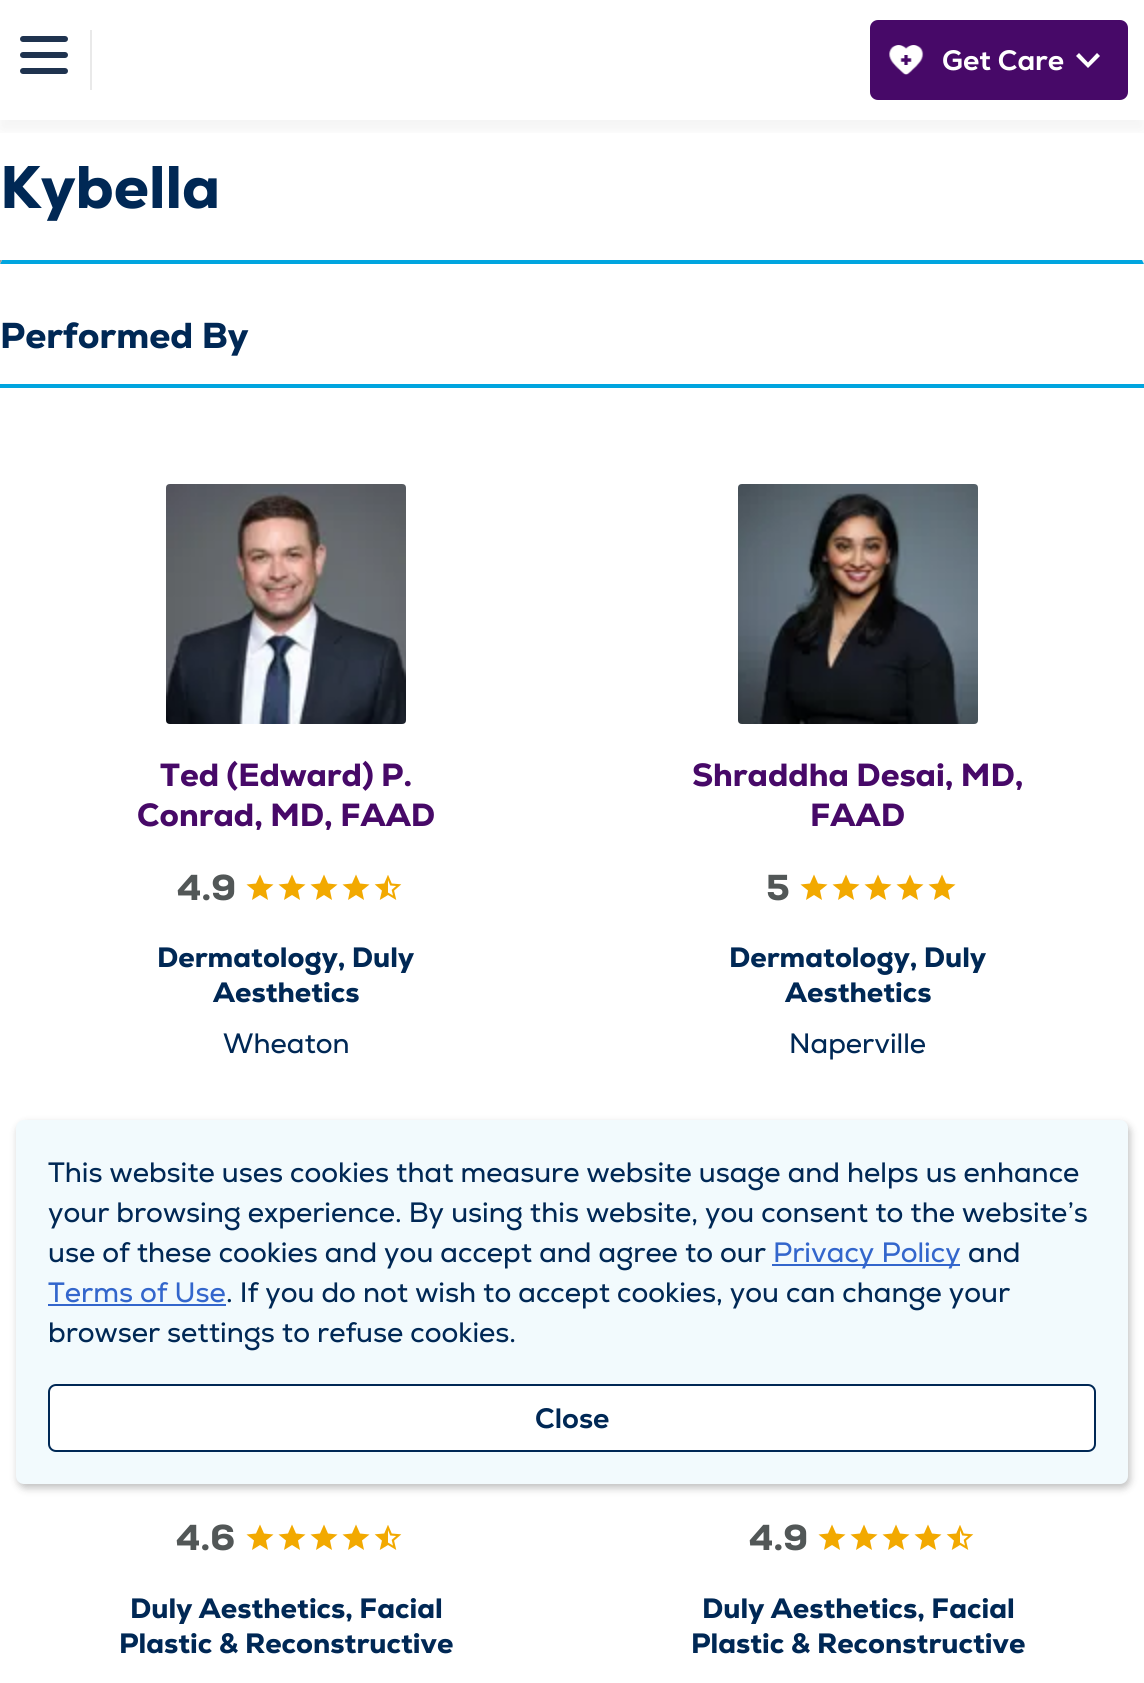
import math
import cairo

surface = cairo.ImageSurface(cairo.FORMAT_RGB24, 1144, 1683)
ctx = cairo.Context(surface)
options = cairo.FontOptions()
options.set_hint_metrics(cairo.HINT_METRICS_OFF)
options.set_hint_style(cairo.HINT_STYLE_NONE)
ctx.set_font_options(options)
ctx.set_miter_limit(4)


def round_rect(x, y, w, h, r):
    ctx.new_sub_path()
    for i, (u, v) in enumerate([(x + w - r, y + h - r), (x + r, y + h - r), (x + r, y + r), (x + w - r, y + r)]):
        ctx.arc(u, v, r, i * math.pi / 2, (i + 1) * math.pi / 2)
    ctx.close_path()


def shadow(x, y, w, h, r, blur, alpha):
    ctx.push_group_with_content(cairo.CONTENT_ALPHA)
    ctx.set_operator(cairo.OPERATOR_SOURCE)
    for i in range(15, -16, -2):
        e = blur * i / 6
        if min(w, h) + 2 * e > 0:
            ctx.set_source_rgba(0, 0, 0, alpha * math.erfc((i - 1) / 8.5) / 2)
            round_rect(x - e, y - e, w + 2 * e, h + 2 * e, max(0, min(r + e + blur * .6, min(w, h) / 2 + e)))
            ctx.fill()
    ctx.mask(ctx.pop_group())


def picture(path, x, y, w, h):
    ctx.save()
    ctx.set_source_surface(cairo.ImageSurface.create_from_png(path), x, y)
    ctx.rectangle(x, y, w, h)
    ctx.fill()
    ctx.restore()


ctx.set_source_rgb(1, 1, 1)
ctx.paint()
ctx.save()
ctx.rectangle(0, 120, 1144, 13)
ctx.clip()
ctx.set_source_rgb(0, 0, 0)
shadow(0, 10, 1144, 120, 0, 10, 0.05)
ctx.restore()
ctx.set_source_rgb(0.122, 0.2, 0.31)
round_rect(20, 36, 48, 6, 3)
ctx.fill()
round_rect(20, 52, 48, 6, 3)
ctx.fill()
round_rect(20, 68, 48, 6, 3)
ctx.fill()
ctx.set_source_rgb(0.914, 0.914, 0.914)
ctx.rectangle(90, 30, 2, 60)
ctx.fill()
ctx.set_source_rgb(0.278, 0.039, 0.408)
round_rect(870, 20, 258, 80, 8)
ctx.fill()
picture("img1.png", 889, 45, 35, 30)
ctx.select_font_face("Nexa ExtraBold")
ctx.set_font_size(28)
ctx.set_source_rgb(1, 1, 1)
ctx.move_to(942, 70)
ctx.show_text("Get Care")
ctx.new_path()
ctx.move_to(1079, 53)
ctx.line_to(1088, 62.5)
ctx.line_to(1097, 53)
ctx.line_to(1100, 56)
ctx.line_to(1088, 68)
ctx.line_to(1076, 56)
ctx.close_path()
ctx.fill()
ctx.select_font_face("Nexa Black")
ctx.set_font_size(60)
ctx.set_source_rgb(0, 0.157, 0.333)
ctx.move_to(0, 208)
ctx.show_text("Kybella")
ctx.set_source_rgb(0.933, 0.933, 0.933)
ctx.new_path()
ctx.move_to(1144, 260)
ctx.line_to(1144, 264)
ctx.line_to(1142, 260)
ctx.close_path()
ctx.fill()
ctx.set_source_rgb(0, 0.647, 0.875)
ctx.new_path()
ctx.move_to(1144, 264)
ctx.line_to(0, 264)
ctx.line_to(2, 260)
ctx.line_to(1142, 260)
ctx.close_path()
ctx.fill()
ctx.set_source_rgb(0.624, 0.624, 0.624)
ctx.new_path()
ctx.move_to(0, 264)
ctx.line_to(0, 260)
ctx.line_to(2, 260)
ctx.close_path()
ctx.fill()
ctx.set_source_rgb(0, 0.647, 0.875)
ctx.rectangle(0, 384, 1144, 4)
ctx.fill()
ctx.set_font_size(36)
ctx.set_source_rgb(0, 0.157, 0.333)
ctx.move_to(0, 348)
ctx.show_text("Performed By")
picture("img2.png", 166, 484, 240, 240)
ctx.set_font_size(32)
ctx.set_source_rgb(0.278, 0.039, 0.408)
ctx.move_to(160, 786)
ctx.show_text("Ted (Edward) P.")
ctx.move_to(137, 826)
ctx.show_text("Conrad, MD, FAAD")
ctx.set_font_size(36)
ctx.set_source_rgb(0.322, 0.341, 0.341)
ctx.move_to(177, 900)
ctx.show_text("4.9")
ctx.set_source_rgb(0.949, 0.663, 0)
ctx.new_path()
ctx.move_to(260, 895)
ctx.line_to(252, 900)
ctx.line_to(254, 890.5)
ctx.line_to(246.5, 884.5)
ctx.line_to(256, 883.5)
ctx.line_to(260, 874.5)
ctx.line_to(264, 883.5)
ctx.line_to(273.5, 884.5)
ctx.line_to(266, 890.5)
ctx.line_to(268, 900)
ctx.close_path()
ctx.move_to(292, 895)
ctx.line_to(284, 900)
ctx.line_to(286, 890.5)
ctx.line_to(278.5, 884.5)
ctx.line_to(288, 883.5)
ctx.line_to(292, 874.5)
ctx.line_to(296, 883.5)
ctx.line_to(305.5, 884.5)
ctx.line_to(298, 890.5)
ctx.line_to(300, 900)
ctx.close_path()
ctx.fill()
ctx.new_path()
ctx.move_to(324, 895)
ctx.line_to(316, 900)
ctx.line_to(318, 890.5)
ctx.line_to(310.5, 884.5)
ctx.line_to(320, 883.5)
ctx.line_to(324, 874.5)
ctx.line_to(328, 883.5)
ctx.line_to(337.5, 884.5)
ctx.line_to(330, 890.5)
ctx.line_to(332, 900)
ctx.close_path()
ctx.move_to(356, 895)
ctx.line_to(348, 900)
ctx.line_to(350, 890.5)
ctx.line_to(342.5, 884.5)
ctx.line_to(352, 883.5)
ctx.line_to(356, 874.5)
ctx.line_to(360, 883.5)
ctx.line_to(369.5, 884.5)
ctx.line_to(362, 890.5)
ctx.line_to(364, 900)
ctx.close_path()
ctx.fill()
picture("img3.png", 374, 875, 28, 25)
ctx.set_font_size(28)
ctx.set_source_rgb(0, 0.157, 0.333)
ctx.move_to(157, 967)
ctx.show_text("Dermatology, Duly")
ctx.move_to(213, 1002)
ctx.show_text("Aesthetics")
ctx.select_font_face("Nexa")
ctx.move_to(223, 1053)
ctx.show_text("Wheaton")
picture("img4.png", 738, 484, 240, 240)
ctx.select_font_face("Nexa Black")
ctx.set_font_size(32)
ctx.set_source_rgb(0.278, 0.039, 0.408)
ctx.move_to(692, 786)
ctx.show_text("Shraddha Desai, MD,")
ctx.move_to(810, 826)
ctx.show_text("FAAD")
ctx.set_font_size(36)
ctx.set_source_rgb(0.322, 0.341, 0.341)
ctx.move_to(766, 900)
ctx.show_text("5")
ctx.set_source_rgb(0.949, 0.663, 0)
ctx.new_path()
ctx.move_to(814, 895)
ctx.line_to(806, 900)
ctx.line_to(808, 890.5)
ctx.line_to(800.5, 884.5)
ctx.line_to(810, 883.5)
ctx.line_to(814, 874.5)
ctx.line_to(818, 883.5)
ctx.line_to(827.5, 884.5)
ctx.line_to(820, 890.5)
ctx.line_to(822, 900)
ctx.close_path()
ctx.move_to(846, 895)
ctx.line_to(838, 900)
ctx.line_to(840, 890.5)
ctx.line_to(832.5, 884.5)
ctx.line_to(842, 883.5)
ctx.line_to(846, 874.5)
ctx.line_to(850, 883.5)
ctx.line_to(859.5, 884.5)
ctx.line_to(852, 890.5)
ctx.line_to(854, 900)
ctx.close_path()
ctx.fill()
ctx.new_path()
ctx.move_to(878, 895)
ctx.line_to(870, 900)
ctx.line_to(872, 890.5)
ctx.line_to(864.5, 884.5)
ctx.line_to(874, 883.5)
ctx.line_to(878, 874.5)
ctx.line_to(882, 883.5)
ctx.line_to(891.5, 884.5)
ctx.line_to(884, 890.5)
ctx.line_to(886, 900)
ctx.close_path()
ctx.move_to(910, 895)
ctx.line_to(902, 900)
ctx.line_to(904, 890.5)
ctx.line_to(896.5, 884.5)
ctx.line_to(906, 883.5)
ctx.line_to(910, 874.5)
ctx.line_to(914, 883.5)
ctx.line_to(923.5, 884.5)
ctx.line_to(916, 890.5)
ctx.line_to(918, 900)
ctx.close_path()
ctx.fill()
ctx.new_path()
ctx.move_to(942, 895)
ctx.line_to(934, 900)
ctx.line_to(936, 890.5)
ctx.line_to(928.5, 884.5)
ctx.line_to(938, 883.5)
ctx.line_to(942, 874.5)
ctx.line_to(946, 883.5)
ctx.line_to(955.5, 884.5)
ctx.line_to(948, 890.5)
ctx.line_to(950, 900)
ctx.close_path()
ctx.fill()
ctx.set_font_size(28)
ctx.set_source_rgb(0, 0.157, 0.333)
ctx.move_to(729, 967)
ctx.show_text("Dermatology, Duly")
ctx.move_to(785, 1002)
ctx.show_text("Aesthetics")
ctx.select_font_face("Nexa")
ctx.move_to(789, 1053)
ctx.show_text("Naperville")
ctx.select_font_face("Nexa Black")
ctx.set_font_size(36)
ctx.set_source_rgb(0.322, 0.341, 0.341)
ctx.move_to(176, 1550)
ctx.show_text("4.6")
ctx.set_source_rgb(0.949, 0.663, 0)
ctx.new_path()
ctx.move_to(260, 1545)
ctx.line_to(252, 1550)
ctx.line_to(254, 1540.5)
ctx.line_to(246.5, 1534.5)
ctx.line_to(256, 1533.5)
ctx.line_to(260, 1524.5)
ctx.line_to(264, 1533.5)
ctx.line_to(273.5, 1534.5)
ctx.line_to(266, 1540.5)
ctx.line_to(268, 1550)
ctx.close_path()
ctx.move_to(292, 1545)
ctx.line_to(284, 1550)
ctx.line_to(286, 1540.5)
ctx.line_to(278.5, 1534.5)
ctx.line_to(288, 1533.5)
ctx.line_to(292, 1524.5)
ctx.line_to(296, 1533.5)
ctx.line_to(305.5, 1534.5)
ctx.line_to(298, 1540.5)
ctx.line_to(300, 1550)
ctx.close_path()
ctx.fill()
ctx.new_path()
ctx.move_to(324, 1545)
ctx.line_to(316, 1550)
ctx.line_to(318, 1540.5)
ctx.line_to(310.5, 1534.5)
ctx.line_to(320, 1533.5)
ctx.line_to(324, 1524.5)
ctx.line_to(328, 1533.5)
ctx.line_to(337.5, 1534.5)
ctx.line_to(330, 1540.5)
ctx.line_to(332, 1550)
ctx.close_path()
ctx.move_to(356, 1545)
ctx.line_to(348, 1550)
ctx.line_to(350, 1540.5)
ctx.line_to(342.5, 1534.5)
ctx.line_to(352, 1533.5)
ctx.line_to(356, 1524.5)
ctx.line_to(360, 1533.5)
ctx.line_to(369.5, 1534.5)
ctx.line_to(362, 1540.5)
ctx.line_to(364, 1550)
ctx.close_path()
ctx.fill()
picture("img3.png", 374, 1525, 28, 25)
ctx.set_font_size(28)
ctx.set_source_rgb(0, 0.157, 0.333)
ctx.move_to(130, 1618)
ctx.show_text("Duly Aesthetics, Facial")
ctx.move_to(119, 1653)
ctx.show_text("Plastic & Reconstructive")
ctx.set_font_size(36)
ctx.set_source_rgb(0.322, 0.341, 0.341)
ctx.move_to(749, 1550)
ctx.show_text("4.9")
ctx.set_source_rgb(0.949, 0.663, 0)
ctx.new_path()
ctx.move_to(832, 1545)
ctx.line_to(824, 1550)
ctx.line_to(826, 1540.5)
ctx.line_to(818.5, 1534.5)
ctx.line_to(828, 1533.5)
ctx.line_to(832, 1524.5)
ctx.line_to(836, 1533.5)
ctx.line_to(845.5, 1534.5)
ctx.line_to(838, 1540.5)
ctx.line_to(840, 1550)
ctx.close_path()
ctx.move_to(864, 1545)
ctx.line_to(856, 1550)
ctx.line_to(858, 1540.5)
ctx.line_to(850.5, 1534.5)
ctx.line_to(860, 1533.5)
ctx.line_to(864, 1524.5)
ctx.line_to(868, 1533.5)
ctx.line_to(877.5, 1534.5)
ctx.line_to(870, 1540.5)
ctx.line_to(872, 1550)
ctx.close_path()
ctx.fill()
ctx.new_path()
ctx.move_to(896, 1545)
ctx.line_to(888, 1550)
ctx.line_to(890, 1540.5)
ctx.line_to(882.5, 1534.5)
ctx.line_to(892, 1533.5)
ctx.line_to(896, 1524.5)
ctx.line_to(900, 1533.5)
ctx.line_to(909.5, 1534.5)
ctx.line_to(902, 1540.5)
ctx.line_to(904, 1550)
ctx.close_path()
ctx.move_to(928, 1545)
ctx.line_to(920, 1550)
ctx.line_to(922, 1540.5)
ctx.line_to(914.5, 1534.5)
ctx.line_to(924, 1533.5)
ctx.line_to(928, 1524.5)
ctx.line_to(932, 1533.5)
ctx.line_to(941.5, 1534.5)
ctx.line_to(934, 1540.5)
ctx.line_to(936, 1550)
ctx.close_path()
ctx.fill()
picture("img3.png", 946, 1525, 28, 25)
ctx.set_font_size(28)
ctx.set_source_rgb(0, 0.157, 0.333)
ctx.move_to(702, 1618)
ctx.show_text("Duly Aesthetics, Facial")
ctx.move_to(691, 1653)
ctx.show_text("Plastic & Reconstructive")
ctx.set_source_rgb(0, 0, 0)
shadow(18, 1124, 1112, 364, 8, 4, 0.25)
ctx.set_source_rgb(0.949, 0.98, 0.992)
round_rect(16, 1120, 1112, 364, 8)
ctx.fill()
ctx.select_font_face("Nexa")
ctx.set_source_rgb(0, 0.157, 0.333)
ctx.move_to(48, 1182)
ctx.show_text("This website uses cookies that measure website usage and helps us enhance")
ctx.move_to(48, 1222)
ctx.show_text("your browsing experience. By using this website, you consent to the website’s")
ctx.move_to(48, 1262)
ctx.show_text("use of these cookies and you accept and agree to our")
ctx.set_source_rgb(0.2, 0.4, 0.8)
ctx.rectangle(772, 1264, 188, 2)
ctx.fill()
ctx.move_to(773, 1262)
ctx.show_text("Privacy Policy")
ctx.set_source_rgb(0, 0.157, 0.333)
ctx.move_to(968, 1262)
ctx.show_text("and")
ctx.set_source_rgb(0.2, 0.4, 0.8)
ctx.move_to(48, 1302)
ctx.show_text("Terms of Use")
ctx.rectangle(48, 1304, 178, 2)
ctx.fill()
ctx.set_source_rgb(0, 0.157, 0.333)
ctx.move_to(226, 1302)
ctx.show_text(". If you do not wish to accept cookies, you can change your")
ctx.move_to(48, 1342)
ctx.show_text("browser settings to refuse cookies.")
ctx.set_source_rgb(1, 1, 1)
round_rect(49, 1385, 1046, 66, 7)
ctx.fill_preserve()
ctx.set_source_rgb(0, 0.157, 0.333)
ctx.stroke()
ctx.select_font_face("Nexa ExtraBold")
ctx.move_to(535, 1428)
ctx.show_text("Close")
surface.write_to_png("page.png")
